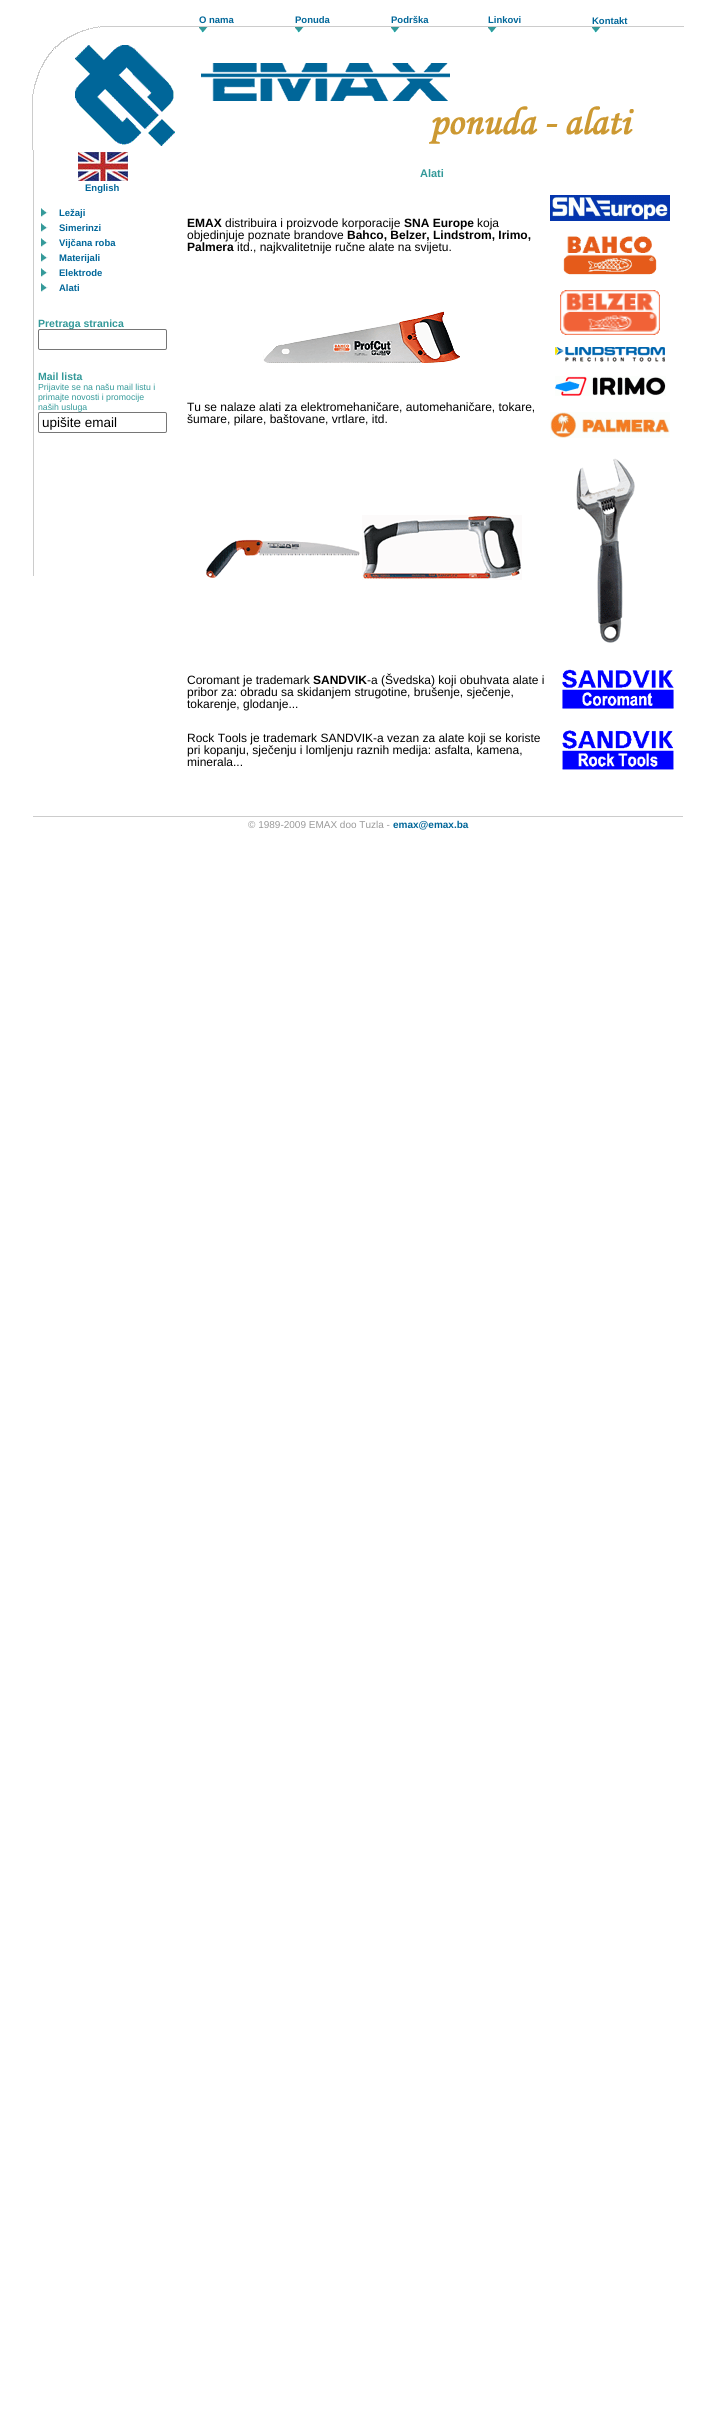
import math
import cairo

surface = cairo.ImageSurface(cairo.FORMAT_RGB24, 720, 2417)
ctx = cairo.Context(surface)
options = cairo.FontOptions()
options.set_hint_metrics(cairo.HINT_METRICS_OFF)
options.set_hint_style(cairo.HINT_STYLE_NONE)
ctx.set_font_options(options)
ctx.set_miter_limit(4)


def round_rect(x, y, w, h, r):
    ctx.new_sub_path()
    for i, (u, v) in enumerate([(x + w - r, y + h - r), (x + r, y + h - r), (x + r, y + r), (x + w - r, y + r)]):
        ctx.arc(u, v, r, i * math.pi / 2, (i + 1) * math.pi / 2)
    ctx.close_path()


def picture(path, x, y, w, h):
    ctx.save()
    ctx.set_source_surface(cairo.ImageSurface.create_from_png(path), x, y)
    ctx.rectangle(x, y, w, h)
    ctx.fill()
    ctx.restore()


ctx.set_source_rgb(1, 1, 1)
ctx.paint()
ctx.select_font_face("Liberation Sans", cairo.FONT_SLANT_NORMAL, cairo.FONT_WEIGHT_BOLD)
ctx.set_font_size(9.5)
ctx.set_source_rgb(0, 0.4, 0.6)
ctx.move_to(199, 23)
ctx.show_text("O nama")
ctx.move_to(295, 23)
ctx.show_text("Ponuda")
ctx.move_to(391, 23)
ctx.show_text("Podrška")
ctx.move_to(488, 23)
ctx.show_text("Linkovi")
ctx.move_to(592, 24)
ctx.show_text("Kontakt")
picture("img1.png", 32, 26, 167, 124)
ctx.set_source_rgb(0.8, 0.8, 0.8)
ctx.rectangle(199, 26, 485, 1)
ctx.fill()
picture("img2.png", 199, 27, 9, 6)
picture("img2.png", 295, 27, 9, 6)
picture("img2.png", 391, 27, 9, 6)
picture("img2.png", 488, 27, 9, 6)
picture("img2.png", 592, 27, 9, 6)
picture("img3.png", 201, 63, 433, 81)
ctx.rectangle(33, 150, 1, 426)
ctx.fill()
picture("img4.png", 78, 152, 50, 29)
ctx.set_source_rgb(0, 0.4, 0.6)
ctx.move_to(85, 191)
ctx.show_text("English")
picture("img5.png", 41, 208, 7, 9)
ctx.move_to(59, 216)
ctx.show_text("Ležaji")
picture("img5.png", 41, 223, 7, 9)
ctx.move_to(59, 231)
ctx.show_text("Simerinzi")
picture("img5.png", 41, 238, 7, 9)
ctx.move_to(59, 246)
ctx.show_text("Vijčana roba")
picture("img5.png", 41, 253, 7, 9)
ctx.move_to(59, 261)
ctx.show_text("Materijali")
picture("img5.png", 41, 268, 7, 9)
ctx.move_to(59, 276)
ctx.show_text("Elektrode")
picture("img5.png", 41, 283, 7, 9)
ctx.move_to(59, 291)
ctx.show_text("Alati")
ctx.set_font_size(10.5)
ctx.set_source_rgb(0.2, 0.6, 0.6)
ctx.move_to(38, 327)
ctx.show_text("Pretraga stranica")
ctx.set_source_rgb(1, 1, 1)
round_rect(38.5, 329.5, 128, 20, 1.5)
ctx.fill_preserve()
ctx.set_source_rgb(0.463, 0.463, 0.463)
ctx.set_line_width(1)
ctx.stroke()
ctx.set_source_rgb(0.2, 0.6, 0.6)
ctx.move_to(38, 380)
ctx.show_text("Mail lista")
ctx.select_font_face("Liberation Sans")
ctx.set_font_size(8.75)
ctx.move_to(38, 390)
ctx.show_text("Prijavite se na našu mail listu i")
ctx.move_to(38, 400)
ctx.show_text("primajte novosti i promocije")
ctx.move_to(38, 410)
ctx.show_text("naših usluga")
round_rect(38.5, 412.5, 128, 20, 1.5)
ctx.set_source_rgb(0.463, 0.463, 0.463)
ctx.stroke()
ctx.set_font_size(13.5)
ctx.set_source_rgb(0, 0, 0)
ctx.move_to(42, 427)
ctx.show_text("upišite email")
ctx.select_font_face("Liberation Sans", cairo.FONT_SLANT_NORMAL, cairo.FONT_WEIGHT_BOLD)
ctx.set_font_size(11)
ctx.set_source_rgb(0.2, 0.6, 0.6)
ctx.move_to(420, 177)
ctx.show_text("Alati")
ctx.set_font_size(12)
ctx.set_source_rgb(0, 0, 0)
ctx.move_to(187, 227)
ctx.show_text("EMAX")
ctx.select_font_face("Liberation Sans")
ctx.move_to(225, 227)
ctx.show_text("distribuira i proizvode korporacije")
ctx.select_font_face("Liberation Sans", cairo.FONT_SLANT_NORMAL, cairo.FONT_WEIGHT_BOLD)
ctx.move_to(404, 227)
ctx.show_text("SNA Europe")
ctx.select_font_face("Liberation Sans")
ctx.move_to(477, 227)
ctx.show_text("koja")
ctx.move_to(187, 239)
ctx.show_text("objedinjuje poznate brandove")
ctx.select_font_face("Liberation Sans", cairo.FONT_SLANT_NORMAL, cairo.FONT_WEIGHT_BOLD)
ctx.move_to(347, 239)
ctx.show_text("Bahco, Belzer, Lindstrom, Irimo,")
ctx.move_to(187, 251)
ctx.show_text("Palmera")
ctx.select_font_face("Liberation Sans")
ctx.move_to(237, 251)
ctx.show_text("itd., najkvalitetnije ručne alate na svijetu.")
picture("img6.png", 263, 311, 197, 52)
ctx.move_to(187, 411)
ctx.show_text("Tu se nalaze alati za elektromehaničare, automehaničare, tokare,")
ctx.move_to(187, 423)
ctx.show_text("šumare, pilare, baštovane, vrtlare, itd.")
picture("img7.png", 206, 539, 154, 39)
picture("img8.png", 362, 515, 160, 65)
picture("img9.png", 550, 195, 120, 26)
picture("img10.png", 563, 236, 94, 39)
picture("img11.png", 560, 290, 100, 45)
picture("img12.png", 555, 347, 110, 15)
picture("img13.png", 555, 376, 111, 20)
picture("img14.png", 550, 412, 120, 26)
picture("img15.png", 576, 458, 59, 185)
ctx.move_to(187, 684)
ctx.show_text("Coromant je trademark")
ctx.select_font_face("Liberation Sans", cairo.FONT_SLANT_NORMAL, cairo.FONT_WEIGHT_BOLD)
ctx.move_to(313, 684)
ctx.show_text("SANDVIK")
ctx.select_font_face("Liberation Sans")
ctx.move_to(367, 684)
ctx.show_text("-a (Švedska) koji obuhvata alate i")
ctx.move_to(187, 696)
ctx.show_text("pribor za: obradu sa skidanjem strugotine, brušenje, sječenje,")
ctx.move_to(187, 708)
ctx.show_text("tokarenje, glodanje...")
ctx.move_to(187, 742)
ctx.show_text("Rock Tools je trademark SANDVIK-a vezan za alate koji se koriste")
ctx.move_to(187, 754)
ctx.show_text("pri kopanju, sječenju i lomljenju raznih medija: asfalta, kamena,")
ctx.move_to(187, 766)
ctx.show_text("minerala...")
picture("img16.png", 562, 669, 112, 40)
picture("img17.png", 562, 730, 112, 40)
ctx.set_source_rgb(0.8, 0.8, 0.8)
ctx.rectangle(33, 816, 650, 1)
ctx.fill()
ctx.set_font_size(10)
ctx.set_source_rgb(0.6, 0.6, 0.6)
ctx.move_to(248, 828)
ctx.show_text("© 1989-2009 EMAX doo Tuzla -")
ctx.select_font_face("Liberation Sans", cairo.FONT_SLANT_NORMAL, cairo.FONT_WEIGHT_BOLD)
ctx.set_source_rgb(0, 0.4, 0.6)
ctx.move_to(393, 828)
ctx.show_text("emax@emax.ba")
surface.write_to_png("page.png")
